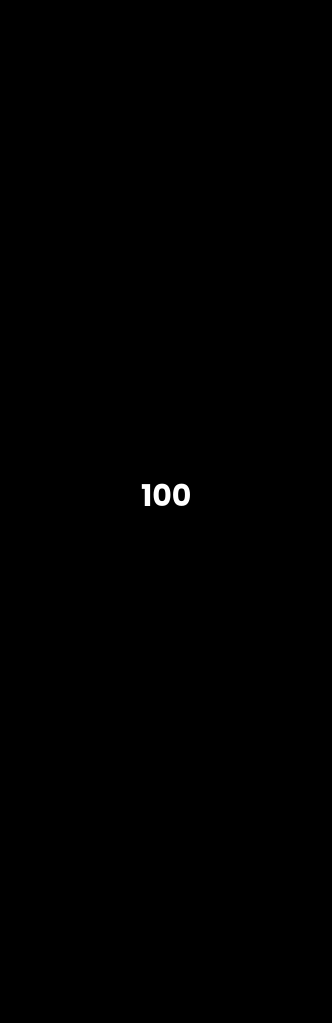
import math
import cairo

surface = cairo.ImageSurface(cairo.FORMAT_RGB24, 332, 1023)
ctx = cairo.Context(surface)
options = cairo.FontOptions()
options.set_hint_metrics(cairo.HINT_METRICS_OFF)
options.set_hint_style(cairo.HINT_STYLE_NONE)
ctx.set_font_options(options)
ctx.set_miter_limit(4)


ctx.set_source_rgb(0, 0, 0)
ctx.paint()
ctx.select_font_face("Poppins", cairo.FONT_SLANT_NORMAL, cairo.FONT_WEIGHT_BOLD)
ctx.set_font_size(30)
ctx.set_source_rgb(1, 1, 1)
ctx.move_to(141, 506)
ctx.show_text("100")
surface.write_to_png("page.png")
